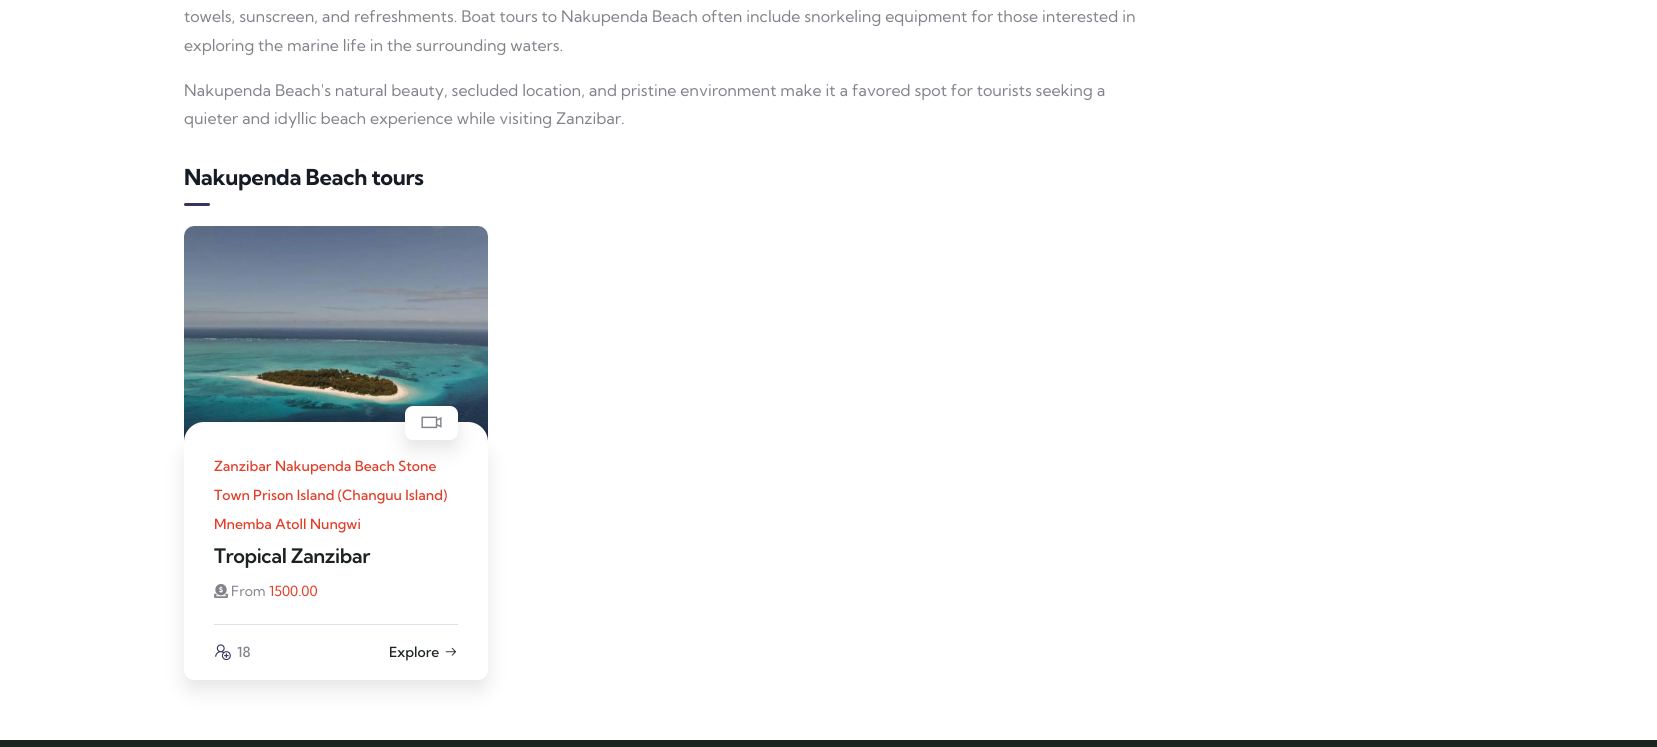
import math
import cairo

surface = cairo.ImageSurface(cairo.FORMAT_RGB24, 1657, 747)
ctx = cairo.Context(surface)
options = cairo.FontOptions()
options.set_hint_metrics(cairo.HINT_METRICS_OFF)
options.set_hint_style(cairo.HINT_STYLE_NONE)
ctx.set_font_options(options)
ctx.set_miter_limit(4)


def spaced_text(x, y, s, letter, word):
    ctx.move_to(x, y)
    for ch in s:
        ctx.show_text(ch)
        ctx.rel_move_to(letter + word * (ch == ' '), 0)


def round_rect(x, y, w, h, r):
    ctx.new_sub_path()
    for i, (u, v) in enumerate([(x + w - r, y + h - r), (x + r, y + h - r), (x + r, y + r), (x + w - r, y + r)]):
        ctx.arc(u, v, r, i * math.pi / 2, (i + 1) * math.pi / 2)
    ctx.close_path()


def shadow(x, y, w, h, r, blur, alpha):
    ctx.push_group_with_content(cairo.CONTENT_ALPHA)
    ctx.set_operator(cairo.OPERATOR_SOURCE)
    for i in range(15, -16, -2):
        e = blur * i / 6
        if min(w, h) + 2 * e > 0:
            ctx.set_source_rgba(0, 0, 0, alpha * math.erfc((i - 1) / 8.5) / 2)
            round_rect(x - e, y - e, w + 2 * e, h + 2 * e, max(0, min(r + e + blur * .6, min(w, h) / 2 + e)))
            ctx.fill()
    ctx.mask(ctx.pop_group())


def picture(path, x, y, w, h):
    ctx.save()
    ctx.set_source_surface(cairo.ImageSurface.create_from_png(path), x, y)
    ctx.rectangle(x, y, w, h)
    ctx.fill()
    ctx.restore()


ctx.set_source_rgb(1, 1, 1)
ctx.paint()
ctx.select_font_face("Kumbh Sans")
ctx.set_font_size(16)
ctx.set_source_rgb(0.51, 0.51, 0.541)
ctx.move_to(184, 22)
ctx.show_text("towels, sunscreen, and refreshments. Boat tours to Nakupenda Beach often include snorkeling equipment for those interested in")
ctx.move_to(184, 51)
ctx.show_text("exploring the marine life in the surrounding waters.")
ctx.move_to(184, 96)
ctx.show_text("Nakupenda Beach's natural beauty, secluded location, and pristine environment make it a favored spot for tourists seeking a")
ctx.move_to(184, 124)
ctx.show_text("quieter and idyllic beach experience while visiting Zanzibar.")
ctx.select_font_face("Kumbh Sans", cairo.FONT_SLANT_NORMAL, cairo.FONT_WEIGHT_BOLD)
ctx.set_font_size(22)
ctx.set_source_rgb(0.086, 0.11, 0.149)
spaced_text(184, 185, "Nakupenda Beach tours", -0.4, 0)
ctx.set_source_rgb(0.204, 0.212, 0.376)
round_rect(184, 203, 26, 3, 1.5)
ctx.fill()
picture("img1.png", 184, 226, 304, 215)
ctx.set_source_rgb(0, 0, 0)
shadow(184, 451, 304, 239, 10, 10, 0.1)
ctx.set_source_rgb(1, 1, 1)
ctx.new_path()
ctx.move_to(184, 441)
ctx.line_to(488, 441)
ctx.line_to(488, 670)
ctx.curve_to(488, 675.5, 483.5, 680, 478, 680)
ctx.line_to(194, 680)
ctx.curve_to(188.5, 680, 184, 675.5, 184, 670)
ctx.close_path()
ctx.fill()
ctx.new_path()
ctx.move_to(204, 422)
ctx.line_to(468, 422)
ctx.curve_to(479, 422, 488, 431, 488, 442)
ctx.line_to(184, 442)
ctx.curve_to(184, 431, 193, 422, 204, 422)
ctx.close_path()
ctx.fill()
ctx.set_source_rgb(0, 0, 0)
shadow(405, 416, 53, 34, 8, 10, 0.1)
ctx.set_source_rgb(1, 1, 1)
round_rect(405, 406, 53, 34, 8)
ctx.fill()
picture("img2.png", 421, 416, 21, 13)
ctx.select_font_face("Kumbh Sans Medium")
ctx.set_font_size(14)
ctx.set_source_rgb(0.886, 0.239, 0.153)
ctx.move_to(214, 471)
ctx.show_text("Zanzibar")
ctx.move_to(275, 471)
ctx.show_text("Nakupenda Beach")
ctx.move_to(398, 471)
ctx.show_text("Stone")
ctx.move_to(214, 500)
ctx.show_text("Town")
ctx.move_to(253, 500)
ctx.show_text("Prison Island (Changuu Island)")
ctx.move_to(214, 529)
ctx.show_text("Mnemba Atoll")
ctx.move_to(310, 529)
ctx.show_text("Nungwi")
ctx.select_font_face("Kumbh Sans SemiBold")
ctx.set_font_size(20)
ctx.set_source_rgb(0.11, 0.137, 0.122)
spaced_text(214, 563, "Tropical Zanzibar", -0.4, 0)
picture("img3.png", 214, 584, 14, 14)
ctx.select_font_face("Kumbh Sans")
ctx.set_font_size(14)
ctx.set_source_rgb(0.51, 0.51, 0.541)
ctx.move_to(231, 596)
ctx.show_text("From")
ctx.set_source_rgb(0.886, 0.239, 0.153)
ctx.move_to(269, 596)
ctx.show_text("1500.00")
ctx.set_source_rgb(0.886, 0.875, 0.922)
ctx.rectangle(214, 624, 244, 1)
ctx.fill()
picture("img4.png", 215, 644, 16, 17)
ctx.select_font_face("Kumbh Sans Medium")
ctx.set_source_rgb(0.51, 0.51, 0.541)
ctx.move_to(237, 657)
ctx.show_text("18")
ctx.set_source_rgb(0.11, 0.137, 0.122)
ctx.move_to(389, 657)
ctx.show_text("Explore")
picture("img5.png", 445, 647, 12, 9)
ctx.set_source_rgb(0.114, 0.137, 0.122)
ctx.rectangle(0, 740, 1657, 7)
ctx.fill()
surface.write_to_png("page.png")
